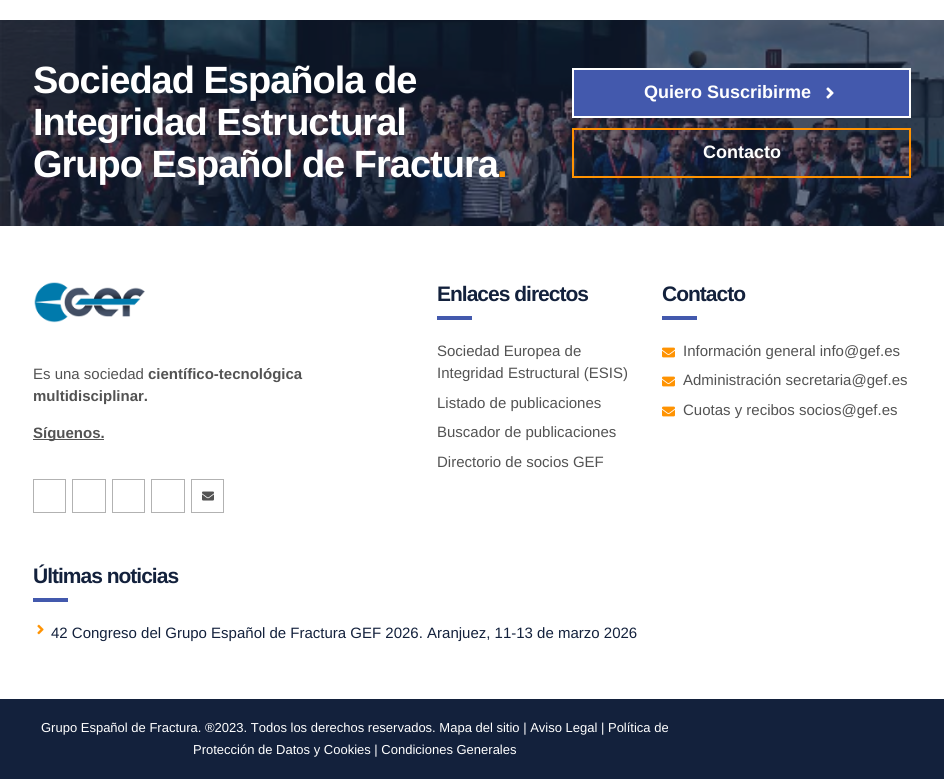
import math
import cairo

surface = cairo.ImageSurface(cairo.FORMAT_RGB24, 944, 779)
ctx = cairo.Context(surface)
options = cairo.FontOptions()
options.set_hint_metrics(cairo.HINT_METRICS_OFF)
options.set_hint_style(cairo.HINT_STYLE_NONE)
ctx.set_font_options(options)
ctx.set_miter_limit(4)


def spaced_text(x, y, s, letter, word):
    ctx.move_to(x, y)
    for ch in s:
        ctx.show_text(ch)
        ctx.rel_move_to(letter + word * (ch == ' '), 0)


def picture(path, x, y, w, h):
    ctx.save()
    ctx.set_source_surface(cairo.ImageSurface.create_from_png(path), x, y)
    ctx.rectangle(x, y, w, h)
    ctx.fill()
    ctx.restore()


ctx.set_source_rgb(1, 1, 1)
ctx.paint()
picture("img1.png", 0, 20, 944, 206)
ctx.select_font_face("Liberation Sans", cairo.FONT_SLANT_NORMAL, cairo.FONT_WEIGHT_BOLD)
ctx.set_font_size(38)
ctx.set_source_rgb(1, 1, 1)
spaced_text(33, 93, "Sociedad Española de", -1, 0)
spaced_text(33, 135, "Integridad Estructural", -1, 0)
spaced_text(33, 177, "Grupo Español de Fractura", -1, 0)
ctx.set_source_rgb(1, 0.576, 0.008)
spaced_text(497, 177, ".", -1, 0)
ctx.set_source_rgb(0.263, 0.349, 0.678)
ctx.rectangle(573, 69, 337, 48)
ctx.fill_preserve()
ctx.set_source_rgb(1, 1, 1)
ctx.stroke()
ctx.set_font_size(18)
ctx.move_to(644, 98)
ctx.show_text("Quiero Suscribirme")
picture("img2.png", 826, 87, 8, 12)
ctx.rectangle(573, 129, 337, 48)
ctx.set_source_rgb(1, 0.576, 0.008)
ctx.stroke()
ctx.set_source_rgb(1, 1, 1)
ctx.move_to(703, 158)
ctx.show_text("Contacto")
picture("img3.png", 34, 282, 111, 41)
ctx.select_font_face("Liberation Sans")
ctx.set_font_size(15)
ctx.set_source_rgb(0.325, 0.325, 0.325)
ctx.move_to(33, 379)
ctx.show_text("Es una sociedad")
ctx.select_font_face("Liberation Sans", cairo.FONT_SLANT_NORMAL, cairo.FONT_WEIGHT_BOLD)
ctx.move_to(148, 379)
ctx.show_text("científico-tecnológica")
ctx.move_to(33, 401)
ctx.show_text("multidisciplinar.")
ctx.rectangle(33, 439, 71, 1)
ctx.fill()
ctx.move_to(33, 438)
ctx.show_text("Síguenos.")
ctx.rectangle(33.5, 479.5, 32, 33)
ctx.set_source_rgb(0.698, 0.698, 0.698)
ctx.set_line_width(1)
ctx.stroke()
ctx.rectangle(72.5, 479.5, 33, 33)
ctx.stroke()
ctx.rectangle(112.5, 479.5, 32, 33)
ctx.stroke()
ctx.rectangle(151.5, 479.5, 33, 33)
ctx.stroke()
ctx.rectangle(191.5, 479.5, 32, 33)
ctx.stroke()
picture("img4.png", 202, 491, 12, 10)
ctx.set_font_size(21)
ctx.set_source_rgb(0.075, 0.129, 0.235)
spaced_text(437, 301, "Enlaces directos", -1, 0)
ctx.set_source_rgb(0.263, 0.349, 0.678)
ctx.rectangle(437, 316, 35, 4)
ctx.fill()
ctx.select_font_face("Liberation Sans")
ctx.set_font_size(15)
ctx.set_source_rgb(0.325, 0.325, 0.325)
ctx.move_to(437, 356)
ctx.show_text("Sociedad Europea de")
ctx.move_to(437, 378)
ctx.show_text("Integridad Estructural (ESIS)")
ctx.move_to(437, 408)
ctx.show_text("Listado de publicaciones")
ctx.move_to(437, 437)
ctx.show_text("Buscador de publicaciones")
ctx.move_to(437, 467)
ctx.show_text("Directorio de socios GEF")
ctx.select_font_face("Liberation Sans", cairo.FONT_SLANT_NORMAL, cairo.FONT_WEIGHT_BOLD)
ctx.set_font_size(21)
ctx.set_source_rgb(0.075, 0.129, 0.235)
spaced_text(662, 301, "Contacto", -1, 0)
ctx.set_source_rgb(0.263, 0.349, 0.678)
ctx.rectangle(662, 316, 35, 4)
ctx.fill()
picture("img5.png", 662, 347, 13, 11)
ctx.select_font_face("Liberation Sans")
ctx.set_font_size(15)
ctx.set_source_rgb(0.325, 0.325, 0.325)
ctx.move_to(683, 356)
ctx.show_text("Información general info@gef.es")
picture("img5.png", 662, 376, 13, 11)
ctx.move_to(683, 385)
ctx.show_text("Administración secretaria@gef.es")
picture("img5.png", 662, 406, 13, 11)
ctx.move_to(683, 415)
ctx.show_text("Cuotas y recibos socios@gef.es")
ctx.select_font_face("Liberation Sans", cairo.FONT_SLANT_NORMAL, cairo.FONT_WEIGHT_BOLD)
ctx.set_font_size(21)
ctx.set_source_rgb(0.075, 0.129, 0.235)
spaced_text(33, 583, "Últimas noticias", -1, 0)
ctx.set_source_rgb(0.263, 0.349, 0.678)
ctx.rectangle(33, 598, 35, 4)
ctx.fill()
picture("img6.png", 37, 624, 7, 11)
ctx.select_font_face("Liberation Sans")
ctx.set_font_size(15)
ctx.set_source_rgb(0.075, 0.129, 0.235)
ctx.move_to(51, 638)
ctx.show_text("42 Congreso del Grupo Español de Fractura GEF 2026. Aranjuez, 11-13 de marzo 2026")
ctx.rectangle(0, 699, 944, 80)
ctx.fill()
ctx.set_font_size(13)
ctx.set_source_rgb(1, 1, 1)
ctx.move_to(41, 732)
ctx.show_text("Grupo Español de Fractura. ®2023. Todos los derechos reservados. Mapa del sitio | Aviso Legal | Política de")
ctx.move_to(193, 754)
ctx.show_text("Protección de Datos y Cookies | Condiciones Generales")
surface.write_to_png("page.png")
